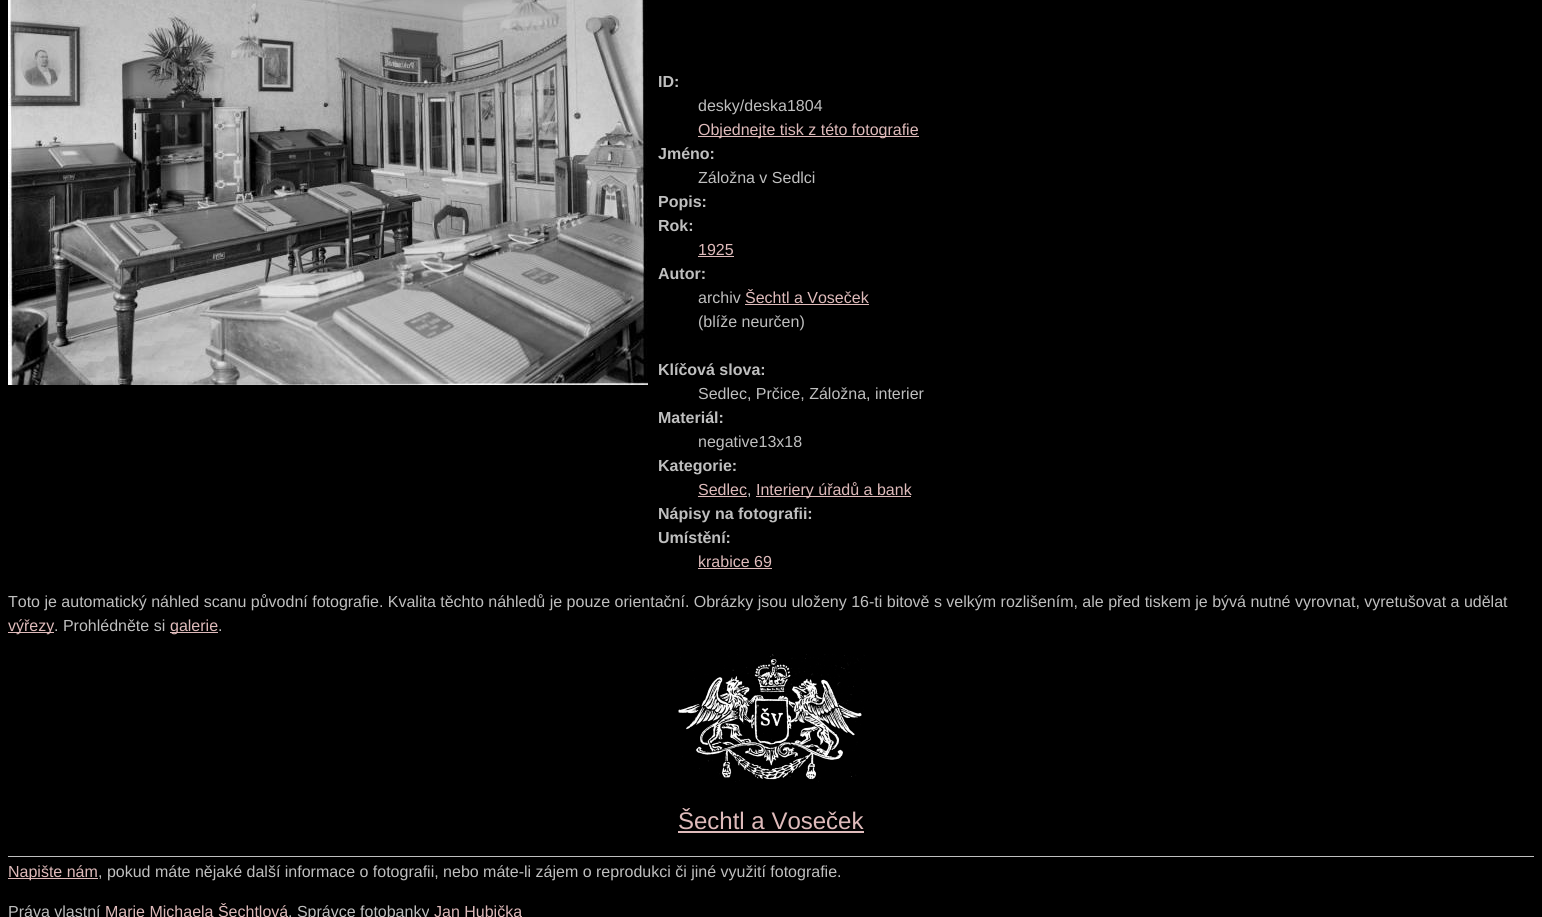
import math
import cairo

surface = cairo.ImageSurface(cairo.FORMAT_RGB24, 1542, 917)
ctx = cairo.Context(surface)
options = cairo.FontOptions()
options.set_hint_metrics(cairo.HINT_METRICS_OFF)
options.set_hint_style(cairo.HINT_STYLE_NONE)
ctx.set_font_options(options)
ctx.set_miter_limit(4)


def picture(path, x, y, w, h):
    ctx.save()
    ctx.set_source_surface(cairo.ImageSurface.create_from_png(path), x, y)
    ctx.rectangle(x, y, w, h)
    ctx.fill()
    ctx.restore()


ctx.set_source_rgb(0, 0, 0)
ctx.paint()
picture("img1.png", 8, 0, 640, 385)
ctx.select_font_face("Liberation Sans", cairo.FONT_SLANT_NORMAL, cairo.FONT_WEIGHT_BOLD)
ctx.set_font_size(16)
ctx.set_source_rgb(0.749, 0.749, 0.749)
ctx.move_to(658, 87)
ctx.show_text("ID:")
ctx.select_font_face("Liberation Sans")
ctx.move_to(698, 111)
ctx.show_text("desky/deska1804")
ctx.set_source_rgb(0.875, 0.733, 0.733)
ctx.rectangle(698, 136, 221, 1)
ctx.fill()
ctx.move_to(698, 135)
ctx.show_text("Objednejte tisk z této fotografie")
ctx.select_font_face("Liberation Sans", cairo.FONT_SLANT_NORMAL, cairo.FONT_WEIGHT_BOLD)
ctx.set_source_rgb(0.749, 0.749, 0.749)
ctx.move_to(658, 159)
ctx.show_text("Jméno:")
ctx.select_font_face("Liberation Sans")
ctx.move_to(698, 183)
ctx.show_text("Záložna v Sedlci")
ctx.select_font_face("Liberation Sans", cairo.FONT_SLANT_NORMAL, cairo.FONT_WEIGHT_BOLD)
ctx.move_to(658, 207)
ctx.show_text("Popis:")
ctx.move_to(658, 231)
ctx.show_text("Rok:")
ctx.select_font_face("Liberation Sans")
ctx.set_source_rgb(0.875, 0.733, 0.733)
ctx.move_to(698, 255)
ctx.show_text("1925")
ctx.rectangle(698, 256, 36, 1)
ctx.fill()
ctx.select_font_face("Liberation Sans", cairo.FONT_SLANT_NORMAL, cairo.FONT_WEIGHT_BOLD)
ctx.set_source_rgb(0.749, 0.749, 0.749)
ctx.move_to(658, 279)
ctx.show_text("Autor:")
ctx.select_font_face("Liberation Sans")
ctx.move_to(698, 303)
ctx.show_text("archiv")
ctx.set_source_rgb(0.875, 0.733, 0.733)
ctx.move_to(745, 303)
ctx.show_text("Šechtl a Voseček")
ctx.rectangle(745, 304, 124, 1)
ctx.fill()
ctx.set_source_rgb(0.749, 0.749, 0.749)
ctx.move_to(698, 327)
ctx.show_text("(blíže neurčen)")
ctx.select_font_face("Liberation Sans", cairo.FONT_SLANT_NORMAL, cairo.FONT_WEIGHT_BOLD)
ctx.move_to(658, 375)
ctx.show_text("Klíčová slova:")
ctx.select_font_face("Liberation Sans")
ctx.move_to(698, 399)
ctx.show_text("Sedlec, Prčice, Záložna, interier")
ctx.select_font_face("Liberation Sans", cairo.FONT_SLANT_NORMAL, cairo.FONT_WEIGHT_BOLD)
ctx.move_to(658, 423)
ctx.show_text("Materiál:")
ctx.select_font_face("Liberation Sans")
ctx.move_to(698, 447)
ctx.show_text("negative13x18")
ctx.select_font_face("Liberation Sans", cairo.FONT_SLANT_NORMAL, cairo.FONT_WEIGHT_BOLD)
ctx.move_to(658, 471)
ctx.show_text("Kategorie:")
ctx.select_font_face("Liberation Sans")
ctx.set_source_rgb(0.875, 0.733, 0.733)
ctx.move_to(698, 495)
ctx.show_text("Sedlec")
ctx.rectangle(698, 496, 49, 1)
ctx.fill()
ctx.set_source_rgb(0.749, 0.749, 0.749)
ctx.move_to(747, 495)
ctx.show_text(",")
ctx.set_source_rgb(0.875, 0.733, 0.733)
ctx.rectangle(756, 496, 155, 1)
ctx.fill()
ctx.move_to(756, 495)
ctx.show_text("Interiery úřadů a bank")
ctx.select_font_face("Liberation Sans", cairo.FONT_SLANT_NORMAL, cairo.FONT_WEIGHT_BOLD)
ctx.set_source_rgb(0.749, 0.749, 0.749)
ctx.move_to(658, 519)
ctx.show_text("Nápisy na fotografii:")
ctx.move_to(658, 543)
ctx.show_text("Umístění:")
ctx.select_font_face("Liberation Sans")
ctx.set_source_rgb(0.875, 0.733, 0.733)
ctx.move_to(698, 567)
ctx.show_text("krabice 69")
ctx.rectangle(698, 568, 74, 1)
ctx.fill()
ctx.set_source_rgb(0.749, 0.749, 0.749)
ctx.move_to(8, 607)
ctx.show_text("Toto je automatický náhled scanu původní fotografie. Kvalita těchto náhledů je pouze orientační. Obrázky jsou uloženy 16-ti bitově s velkým rozlišením, ale před tiskem je bývá nutné vyrovnat, vyretušovat a udělat")
ctx.set_source_rgb(0.875, 0.733, 0.733)
ctx.rectangle(8, 632, 46, 1)
ctx.fill()
ctx.move_to(8, 631)
ctx.show_text("výřezy")
ctx.set_source_rgb(0.749, 0.749, 0.749)
ctx.move_to(54, 631)
ctx.show_text(". Prohlédněte si")
ctx.set_source_rgb(0.875, 0.733, 0.733)
ctx.rectangle(170, 632, 48, 1)
ctx.fill()
ctx.move_to(170, 631)
ctx.show_text("galerie")
ctx.set_source_rgb(0.749, 0.749, 0.749)
ctx.move_to(218, 631)
ctx.show_text(".")
picture("img2.png", 678, 654, 187, 128)
ctx.set_font_size(24)
ctx.set_source_rgb(0.875, 0.733, 0.733)
ctx.move_to(678, 829)
ctx.show_text("Šechtl a Voseček")
ctx.rectangle(678, 831, 186, 2)
ctx.fill()
ctx.set_source_rgb(0.749, 0.749, 0.749)
ctx.rectangle(8, 856, 1526, 1)
ctx.fill()
ctx.set_source_rgb(0.875, 0.733, 0.733)
ctx.rectangle(8, 878, 90, 1)
ctx.fill()
ctx.set_font_size(16)
ctx.move_to(8, 877)
ctx.show_text("Napište nám")
ctx.set_source_rgb(0.749, 0.749, 0.749)
ctx.move_to(98, 877)
ctx.show_text(", pokud máte nějaké další informace o fotografii, nebo máte-li zájem o reprodukci či jiné využití fotografie.")
ctx.move_to(8, 917)
ctx.show_text("Práva vlastní")
ctx.set_source_rgb(0.875, 0.733, 0.733)
ctx.move_to(105, 917)
ctx.show_text("Marie Michaela Šechtlová")
ctx.set_source_rgb(0.749, 0.749, 0.749)
ctx.move_to(288, 917)
ctx.show_text(". Správce fotobanky")
ctx.set_source_rgb(0.875, 0.733, 0.733)
ctx.move_to(434, 917)
ctx.show_text("Jan Hubička")
surface.write_to_png("page.png")
